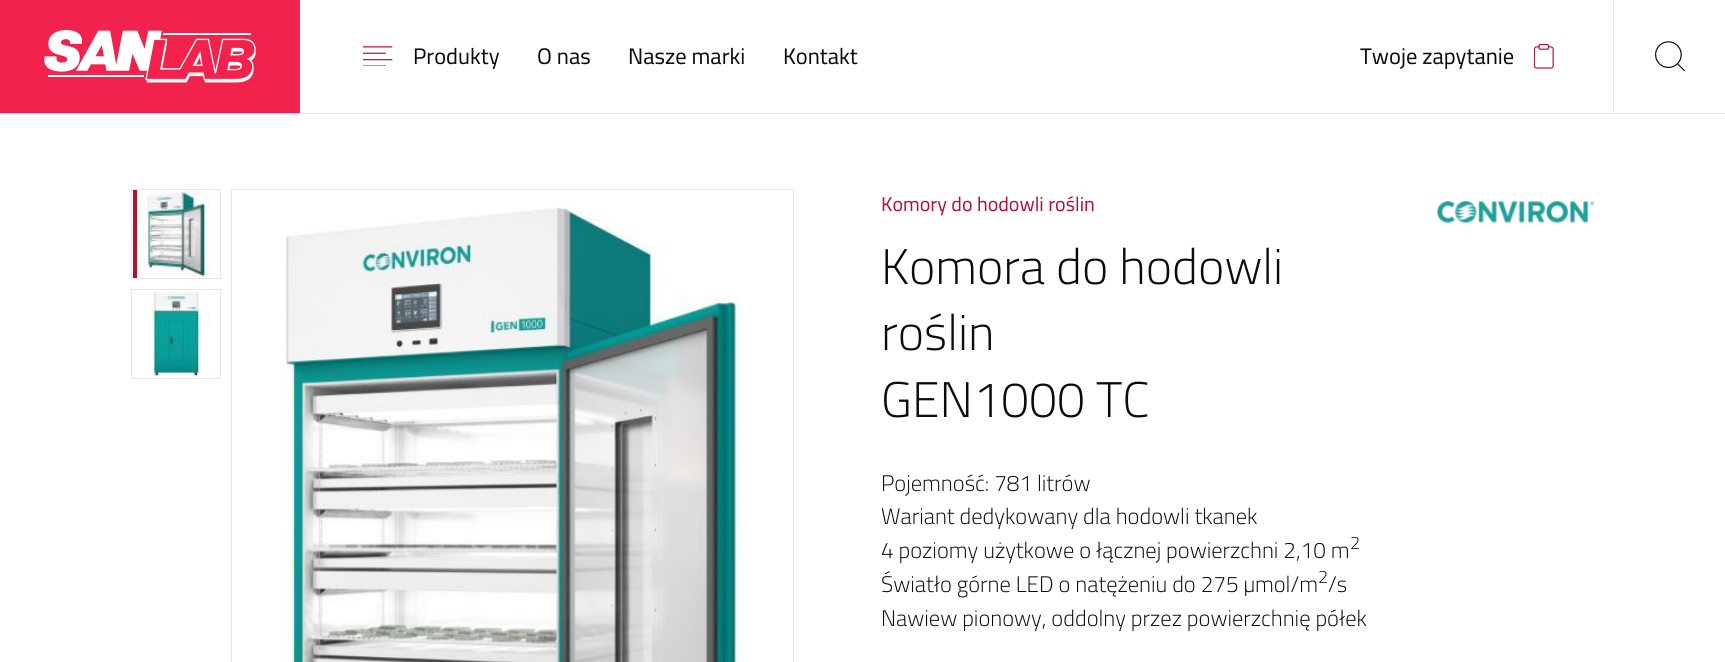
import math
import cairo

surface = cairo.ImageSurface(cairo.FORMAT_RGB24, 1725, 662)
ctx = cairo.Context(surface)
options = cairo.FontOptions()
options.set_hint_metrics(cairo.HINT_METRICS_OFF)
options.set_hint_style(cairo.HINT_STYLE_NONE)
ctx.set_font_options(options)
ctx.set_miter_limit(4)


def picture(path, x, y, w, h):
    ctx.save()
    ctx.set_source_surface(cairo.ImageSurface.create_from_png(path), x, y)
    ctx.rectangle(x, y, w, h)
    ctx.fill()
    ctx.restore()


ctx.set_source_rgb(1, 1, 1)
ctx.paint()
ctx.set_source_rgb(0.898, 0.902, 0.902)
ctx.rectangle(0, 113, 1725, 1)
ctx.fill()
ctx.set_source_rgb(0.945, 0.133, 0.294)
ctx.rectangle(0, 0, 300, 113)
ctx.fill()
picture("img1.png", 44, 30, 212, 53)
picture("img2.png", 363, 46, 30, 20)
ctx.select_font_face("Cairo")
ctx.set_font_size(22.5)
ctx.set_source_rgb(0.027, 0.047, 0.067)
ctx.move_to(413, 64)
ctx.show_text("Produkty")
ctx.move_to(537, 64)
ctx.show_text("O nas")
ctx.move_to(628, 64)
ctx.show_text("Nasze marki")
ctx.move_to(783, 64)
ctx.show_text("Kontakt")
ctx.move_to(1360, 64)
ctx.show_text("Twoje zapytanie")
picture("img3.png", 1534, 44, 20, 25)
ctx.set_source_rgb(0.898, 0.902, 0.902)
ctx.rectangle(1613, 0, 1, 113)
ctx.fill()
picture("img4.png", 1655, 41, 30, 30)
ctx.rectangle(131.5, 189.5, 89, 89)
ctx.set_line_width(1)
ctx.stroke()
ctx.set_source_rgb(0.729, 0.047, 0.184)
ctx.rectangle(133, 190, 4, 88)
ctx.fill()
picture("img5.png", 137, 190, 74, 88)
ctx.rectangle(131.5, 289.5, 89, 89)
ctx.set_source_rgb(0.898, 0.902, 0.902)
ctx.stroke()
picture("img6.png", 151, 290, 60, 88)
ctx.rectangle(231.5, 189.5, 562, 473)
ctx.stroke()
picture("img7.png", 286, 207, 456, 455)
ctx.set_font_size(20)
ctx.set_source_rgb(0.729, 0.047, 0.184)
ctx.move_to(881, 211)
ctx.show_text("Komory do hodowli roślin")
ctx.select_font_face("Cairo Light")
ctx.set_font_size(50)
ctx.set_source_rgb(0.027, 0.047, 0.067)
ctx.move_to(881, 284)
ctx.show_text("Komora do hodowli")
ctx.move_to(881, 350)
ctx.show_text("roślin")
ctx.move_to(881, 417)
ctx.show_text("GEN1000 TC")
picture("img8.png", 1437, 201, 157, 22)
ctx.set_font_size(22.5)
ctx.move_to(881, 491)
ctx.show_text("Pojemność: 781 litrów")
ctx.move_to(881, 524)
ctx.show_text("Wariant dedykowany dla hodowli tkanek")
ctx.move_to(881, 558)
ctx.show_text("4 poziomy użytkowe o łącznej powierzchni 2,10 m")
ctx.set_font_size(18)
ctx.move_to(1350, 549)
ctx.show_text("2")
ctx.set_font_size(22.5)
ctx.move_to(881, 592)
ctx.show_text("Światło górne LED o natężeniu do 275 µmol/m")
ctx.set_font_size(18)
ctx.move_to(1318, 583)
ctx.show_text("2")
ctx.set_font_size(22.5)
ctx.move_to(1328, 592)
ctx.show_text("/s")
ctx.move_to(881, 626)
ctx.show_text("Nawiew pionowy, oddolny przez powierzchnię półek")
surface.write_to_png("page.png")
